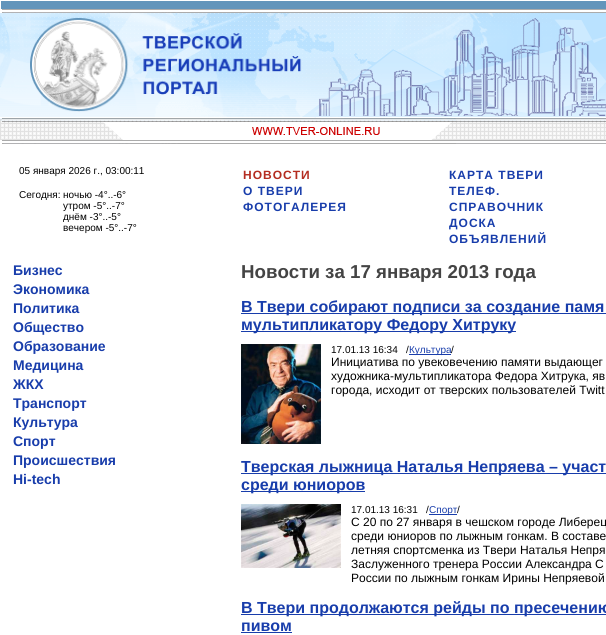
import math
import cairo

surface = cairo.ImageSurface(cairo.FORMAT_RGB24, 606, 635)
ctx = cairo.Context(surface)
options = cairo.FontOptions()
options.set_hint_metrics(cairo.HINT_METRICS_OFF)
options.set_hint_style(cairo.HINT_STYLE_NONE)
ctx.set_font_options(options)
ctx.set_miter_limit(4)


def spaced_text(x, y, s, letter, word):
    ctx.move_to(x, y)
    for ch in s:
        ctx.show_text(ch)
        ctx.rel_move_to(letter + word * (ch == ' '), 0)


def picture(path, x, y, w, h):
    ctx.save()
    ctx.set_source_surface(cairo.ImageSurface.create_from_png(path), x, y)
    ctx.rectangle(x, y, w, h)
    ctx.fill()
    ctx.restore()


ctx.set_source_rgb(1, 1, 1)
ctx.paint()
picture("img1.png", 512, 1, 94, 59)
picture("img2.png", 0, 1, 512, 116)
picture("img3.png", 30, 18, 272, 94)
picture("img4.png", 302, 13, 304, 105)
picture("img5.png", 319, 18, 287, 98)
picture("img6.png", 456, 118, 150, 26)
picture("img7.png", 0, 118, 456, 26)
ctx.select_font_face("Liberation Sans")
ctx.set_font_size(10)
ctx.set_source_rgb(0, 0, 0)
ctx.move_to(19, 174)
ctx.show_text("05 января 2026 г., 03:00:11")
ctx.move_to(19, 198)
ctx.show_text("Сегодня:")
ctx.move_to(63, 198)
ctx.show_text("ночью -4°..-6°")
ctx.move_to(63, 209)
ctx.show_text("утром -5°..-7°")
ctx.move_to(63, 220)
ctx.show_text("днём -3°..-5°")
ctx.move_to(63, 231)
ctx.show_text("вечером -5°..-7°")
ctx.select_font_face("Liberation Sans", cairo.FONT_SLANT_NORMAL, cairo.FONT_WEIGHT_BOLD)
ctx.set_font_size(12)
ctx.set_source_rgb(0.706, 0.173, 0.125)
spaced_text(243, 179, "НОВОСТИ", 1, 0)
ctx.set_source_rgb(0.094, 0.239, 0.671)
spaced_text(243, 195, "О ТВЕРИ", 1, 0)
spaced_text(243, 211, "ФОТОГАЛЕРЕЯ", 1, 0)
spaced_text(449, 179, "КАРТА ТВЕРИ", 1, 0)
spaced_text(449, 195, "ТЕЛЕФ.", 1, 0)
spaced_text(449, 211, "СПРАВОЧНИК", 1, 0)
spaced_text(449, 227, "ДОСКА", 1, 0)
spaced_text(449, 243, "ОБЪЯВЛЕНИЙ", 1, 0)
ctx.set_font_size(14)
ctx.move_to(13, 275)
ctx.show_text("Бизнес")
ctx.move_to(13, 294)
ctx.show_text("Экономика")
ctx.move_to(13, 313)
ctx.show_text("Политика")
ctx.move_to(13, 332)
ctx.show_text("Общество")
ctx.move_to(13, 351)
ctx.show_text("Образование")
ctx.move_to(13, 370)
ctx.show_text("Медицина")
ctx.move_to(13, 389)
ctx.show_text("ЖКХ")
ctx.move_to(13, 408)
ctx.show_text("Транспорт")
ctx.move_to(13, 427)
ctx.show_text("Культура")
ctx.move_to(13, 446)
ctx.show_text("Спорт")
ctx.move_to(13, 465)
ctx.show_text("Происшествия")
ctx.move_to(13, 484)
ctx.show_text("Hi-tech")
ctx.set_font_size(18.7)
ctx.set_source_rgb(0.267, 0.267, 0.267)
ctx.move_to(241, 278)
ctx.show_text("Новости за 17 января 2013 года")
ctx.set_source_rgb(0.094, 0.239, 0.671)
ctx.rectangle(241, 313, 365, 1)
ctx.fill()
ctx.set_font_size(16)
ctx.move_to(241, 312)
ctx.show_text("В Твери собирают подписи за создание памя")
ctx.rectangle(241, 331, 275, 1)
ctx.fill()
ctx.move_to(241, 330)
ctx.show_text("мультипликатору Федору Хитруку")
picture("img8.png", 241, 344, 80, 100)
ctx.select_font_face("Liberation Sans")
ctx.set_font_size(10)
ctx.set_source_rgb(0, 0, 0)
ctx.move_to(331, 353)
ctx.show_text("17.01.13 16:34   /")
ctx.set_source_rgb(0.094, 0.239, 0.671)
ctx.rectangle(409, 354, 42, 1)
ctx.fill()
ctx.move_to(409, 353)
ctx.show_text("Культура")
ctx.set_source_rgb(0, 0, 0)
ctx.move_to(451, 353)
ctx.show_text("/")
ctx.set_font_size(12)
ctx.move_to(331, 366)
ctx.show_text("Инициатива по увековечению памяти выдающег")
ctx.move_to(331, 380)
ctx.show_text("художника-мультипликатора Федора Хитрука, яв")
ctx.move_to(331, 394)
ctx.show_text("города, исходит от тверских пользователей Twitt")
ctx.set_source_rgb(0.094, 0.239, 0.671)
ctx.rectangle(241, 473, 365, 1)
ctx.fill()
ctx.select_font_face("Liberation Sans", cairo.FONT_SLANT_NORMAL, cairo.FONT_WEIGHT_BOLD)
ctx.set_font_size(16)
ctx.move_to(241, 472)
ctx.show_text("Тверская лыжница Наталья Непряева – участ")
ctx.rectangle(241, 491, 124, 1)
ctx.fill()
ctx.move_to(241, 490)
ctx.show_text("среди юниоров")
picture("img9.png", 241, 504, 100, 64)
ctx.select_font_face("Liberation Sans")
ctx.set_font_size(10)
ctx.set_source_rgb(0, 0, 0)
ctx.move_to(351, 513)
ctx.show_text("17.01.13 16:31   /")
ctx.set_source_rgb(0.094, 0.239, 0.671)
ctx.rectangle(429, 514, 28, 1)
ctx.fill()
ctx.move_to(429, 513)
ctx.show_text("Спорт")
ctx.set_source_rgb(0, 0, 0)
ctx.move_to(457, 513)
ctx.show_text("/")
ctx.set_font_size(12)
ctx.move_to(351, 526)
ctx.show_text("C 20 по 27 января в чешском городе Либерец")
ctx.move_to(351, 540)
ctx.show_text("среди юниоров по лыжным гонкам. В составе")
ctx.move_to(351, 554)
ctx.show_text("летняя спортсменка из Твери Наталья Непря")
ctx.move_to(351, 568)
ctx.show_text("Заслуженного тренера России Александра С")
ctx.move_to(351, 582)
ctx.show_text("России по лыжным гонкам Ирины Непряевой")
ctx.set_source_rgb(0.094, 0.239, 0.671)
ctx.rectangle(241, 614, 365, 1)
ctx.fill()
ctx.select_font_face("Liberation Sans", cairo.FONT_SLANT_NORMAL, cairo.FONT_WEIGHT_BOLD)
ctx.set_font_size(16)
ctx.move_to(241, 613)
ctx.show_text("В Твери продолжаются рейды по пресечению")
ctx.move_to(241, 631)
ctx.show_text("пивом")
ctx.rectangle(241, 632, 51, 1)
ctx.fill()
surface.write_to_png("page.png")
